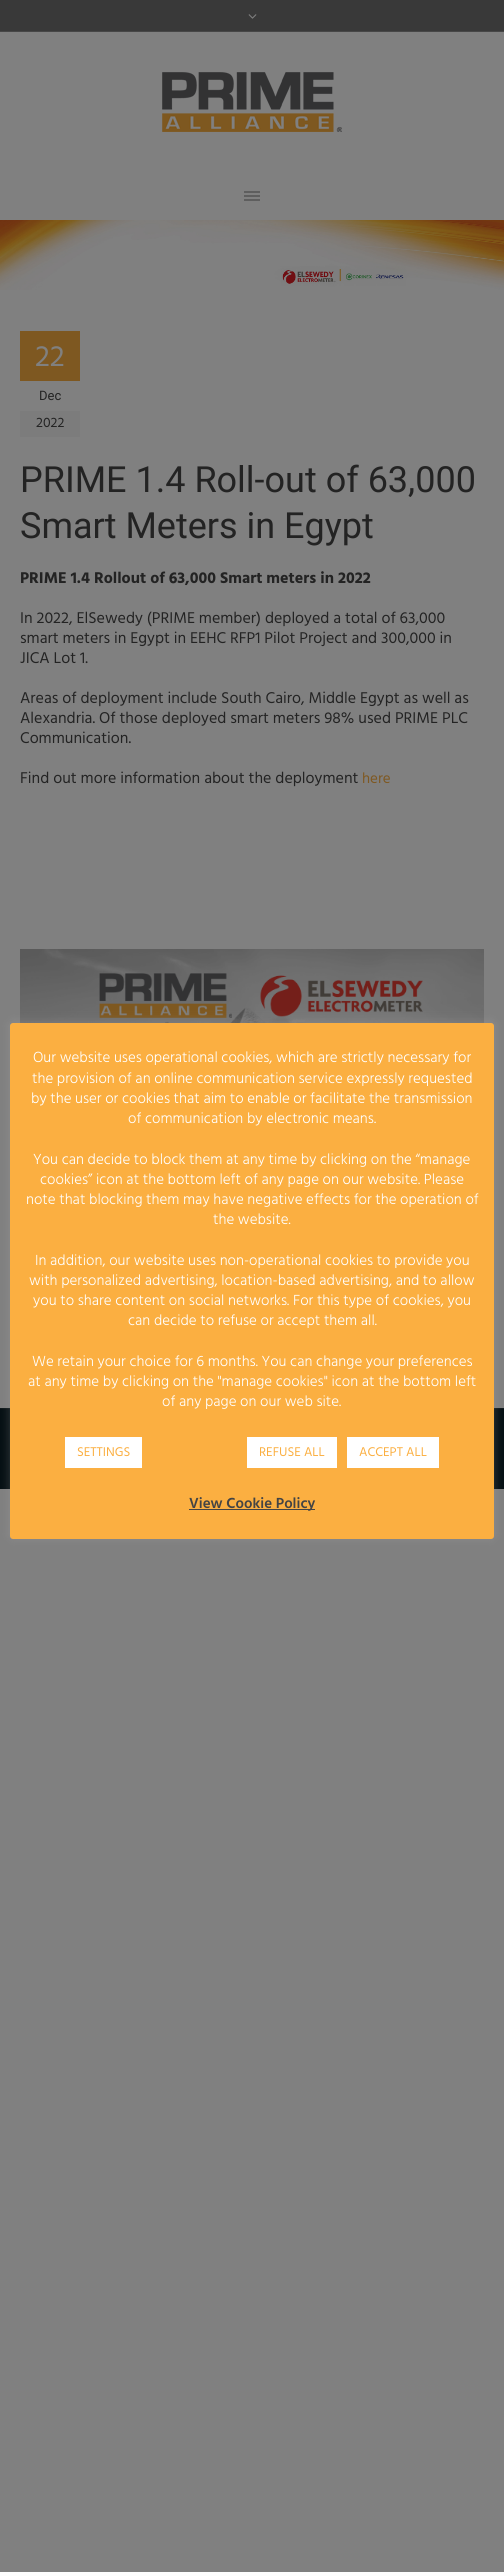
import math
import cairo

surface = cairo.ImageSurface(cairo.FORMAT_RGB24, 504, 2572)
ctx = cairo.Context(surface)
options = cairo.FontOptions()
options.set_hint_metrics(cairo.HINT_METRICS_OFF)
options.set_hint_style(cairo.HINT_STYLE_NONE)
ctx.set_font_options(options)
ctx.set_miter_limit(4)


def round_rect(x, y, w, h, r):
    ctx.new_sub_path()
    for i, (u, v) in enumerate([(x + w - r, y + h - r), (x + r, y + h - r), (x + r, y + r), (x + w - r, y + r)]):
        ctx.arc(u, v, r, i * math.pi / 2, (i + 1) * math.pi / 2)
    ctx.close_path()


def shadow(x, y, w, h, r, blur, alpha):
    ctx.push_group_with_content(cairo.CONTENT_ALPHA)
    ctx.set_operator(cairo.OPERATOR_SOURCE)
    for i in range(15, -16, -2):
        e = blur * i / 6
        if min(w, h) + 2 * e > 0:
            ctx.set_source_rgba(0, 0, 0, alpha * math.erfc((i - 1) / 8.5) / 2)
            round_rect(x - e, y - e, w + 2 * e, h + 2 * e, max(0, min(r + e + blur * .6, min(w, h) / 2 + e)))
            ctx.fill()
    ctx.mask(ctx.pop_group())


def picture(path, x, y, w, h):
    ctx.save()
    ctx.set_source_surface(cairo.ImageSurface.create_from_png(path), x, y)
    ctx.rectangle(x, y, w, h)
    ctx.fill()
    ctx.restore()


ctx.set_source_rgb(0.502, 0.502, 0.502)
ctx.paint()
ctx.set_source_rgb(0.224, 0.224, 0.224)
ctx.rectangle(0, 0, 504, 31)
ctx.fill()
ctx.set_source_rgb(0.278, 0.278, 0.278)
ctx.rectangle(0, 31, 504, 1)
ctx.fill()
picture("img1.png", 248, 14, 9, 5)
picture("img2.png", 162, 72, 180, 60)
ctx.set_source_rgb(0.369, 0.369, 0.369)
ctx.rectangle(244, 191, 16, 2)
ctx.fill()
ctx.rectangle(244, 199, 16, 2)
ctx.fill()
ctx.rectangle(244, 195, 16, 2)
ctx.fill()
picture("img3.png", 0, 220, 504, 70)
ctx.set_source_rgb(0.494, 0.345, 0.129)
ctx.rectangle(20, 331, 60, 50)
ctx.fill()
ctx.select_font_face("Hind")
ctx.set_font_size(30)
ctx.set_source_rgb(0.502, 0.502, 0.502)
ctx.move_to(35, 366)
ctx.show_text("22")
ctx.select_font_face("Roboto")
ctx.set_font_size(13)
ctx.set_source_rgb(0.137, 0.137, 0.137)
ctx.move_to(39, 400)
ctx.show_text("Dec")
ctx.set_source_rgb(0.486, 0.486, 0.486)
ctx.rectangle(20, 411, 60, 26)
ctx.fill()
ctx.select_font_face("Hind")
ctx.set_font_size(14)
ctx.set_source_rgb(0.137, 0.137, 0.137)
ctx.move_to(36, 427)
ctx.show_text("2022")
ctx.select_font_face("Roboto")
ctx.set_font_size(36)
ctx.move_to(20, 492)
ctx.show_text("PRIME 1.4 Roll-out of 63,000")
ctx.move_to(20, 538)
ctx.show_text("Smart Meters in Egypt")
ctx.select_font_face("Hind", cairo.FONT_SLANT_NORMAL, cairo.FONT_WEIGHT_BOLD)
ctx.set_font_size(16)
ctx.move_to(20, 583)
ctx.show_text("PRIME 1.4 Rollout of 63,000 Smart meters in 2022")
ctx.select_font_face("Hind")
ctx.move_to(20, 623)
ctx.show_text("In 2022, ElSewedy (PRIME member) deployed a total of 63,000")
ctx.move_to(20, 643)
ctx.show_text("smart meters in Egypt in EEHC RFP1 Pilot Project and 300,000 in")
ctx.move_to(20, 663)
ctx.show_text("JICA Lot 1.")
ctx.move_to(20, 703)
ctx.show_text("Areas of deployment include South Cairo, Middle Egypt as well as")
ctx.move_to(20, 723)
ctx.show_text("Alexandria. Of those deployed smart meters 98% used PRIME PLC")
ctx.move_to(20, 743)
ctx.show_text("Communication.")
ctx.move_to(20, 783)
ctx.show_text("Find out more information about the deployment")
ctx.set_font_size(15)
ctx.set_source_rgb(0.494, 0.345, 0.129)
ctx.move_to(362, 783)
ctx.show_text("here")
picture("img4.png", 20, 949, 464, 74)
ctx.set_source_rgb(0.02, 0.059, 0.075)
ctx.rectangle(0, 1409, 504, 80)
ctx.fill()
ctx.set_source_rgb(0.055, 0.094, 0.106)
ctx.rectangle(0, 1408, 504, 1)
ctx.fill()
ctx.set_source_rgb(0.675, 0.671, 0.671)
shadow(10, 1022, 484, 516, 3, 5, 0.3)
ctx.set_source_rgb(0.984, 0.686, 0.255)
round_rect(10, 1023, 484, 516, 3)
ctx.fill()
ctx.select_font_face("Hind Light")
ctx.set_source_rgb(1, 1, 1)
ctx.move_to(33, 1062)
ctx.show_text("Our website uses operational cookies, which are strictly necessary for")
ctx.move_to(32, 1083)
ctx.show_text("the provision of an online communication service expressly requested")
ctx.move_to(31, 1103)
ctx.show_text("by the user or cookies that aim to enable or facilitate the transmission")
ctx.move_to(128, 1123)
ctx.show_text("of communication by electronic means.")
ctx.move_to(33, 1164)
ctx.show_text("You can decide to block them at any time by clicking on the “manage")
ctx.move_to(40, 1184)
ctx.show_text("cookies” icon at the bottom left of any page on our website. Please")
ctx.move_to(26, 1204)
ctx.show_text("note that blocking them may have negative effects for the operation of")
ctx.move_to(213, 1224)
ctx.show_text("the website.")
ctx.move_to(35, 1265)
ctx.show_text("In addition, our website uses non-operational cookies to provide you")
ctx.move_to(29, 1285)
ctx.show_text("with personalized advertising, location-based advertising, and to allow")
ctx.move_to(33, 1305)
ctx.show_text("you to share content on social networks. For this type of cookies, you")
ctx.move_to(128, 1325)
ctx.show_text("can decide to refuse or accept them all.")
ctx.move_to(32, 1366)
ctx.show_text("We retain your choice for 6 months. You can change your preferences")
ctx.move_to(28, 1386)
ctx.show_text("at any time by clicking on the \"manage cookies\" icon at the bottom left")
ctx.move_to(162, 1406)
ctx.show_text("of any page on our web site.")
ctx.rectangle(65, 1437, 77, 31)
ctx.fill()
ctx.select_font_face("Hind")
ctx.set_font_size(13)
ctx.set_source_rgb(0.984, 0.686, 0.255)
ctx.move_to(77, 1456)
ctx.show_text("SETTINGS")
ctx.set_source_rgb(1, 1, 1)
ctx.rectangle(247, 1437, 90, 31)
ctx.fill()
ctx.set_source_rgb(0.984, 0.686, 0.255)
ctx.move_to(259, 1456)
ctx.show_text("REFUSE ALL")
ctx.set_source_rgb(1, 1, 1)
ctx.rectangle(347, 1437, 92, 31)
ctx.fill()
ctx.set_source_rgb(0.984, 0.686, 0.255)
ctx.move_to(359, 1456)
ctx.show_text("ACCEPT ALL")
ctx.set_source_rgb(0.267, 0.267, 0.267)
ctx.rectangle(189, 1509, 126, 1)
ctx.fill()
ctx.select_font_face("Hind SemiBold")
ctx.set_font_size(15)
ctx.move_to(189, 1508)
ctx.show_text("View Cookie Policy")
surface.write_to_png("page.png")
